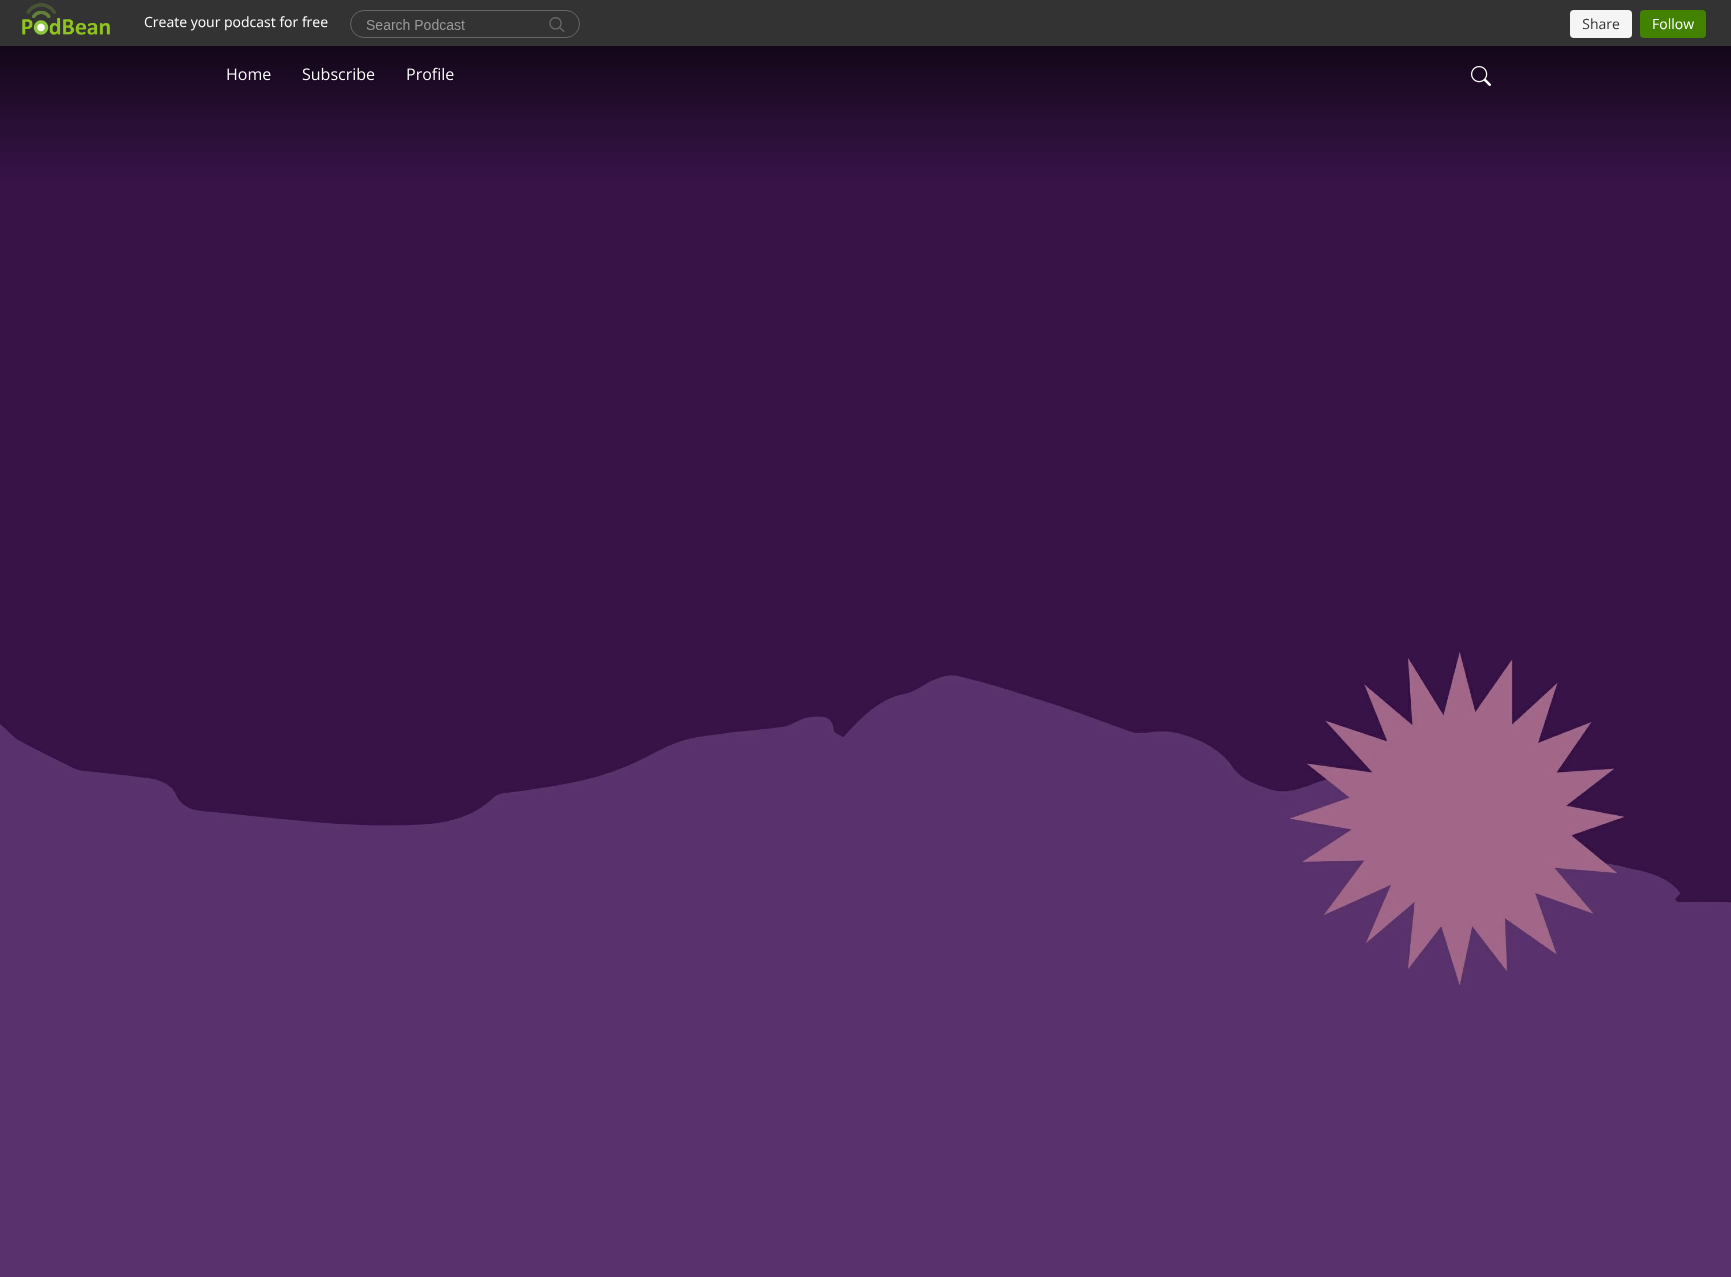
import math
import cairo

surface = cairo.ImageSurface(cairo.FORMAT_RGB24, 1731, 1277)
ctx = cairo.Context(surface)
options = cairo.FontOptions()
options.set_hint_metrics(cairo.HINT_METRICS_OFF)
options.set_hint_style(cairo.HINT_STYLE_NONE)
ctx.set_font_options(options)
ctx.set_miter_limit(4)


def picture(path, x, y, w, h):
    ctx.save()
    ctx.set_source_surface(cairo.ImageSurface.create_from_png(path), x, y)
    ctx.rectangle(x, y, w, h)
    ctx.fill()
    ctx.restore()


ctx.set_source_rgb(1, 1, 1)
ctx.paint()
ctx.set_source_rgb(0.2, 0.2, 0.2)
ctx.rectangle(0, 0, 1731, 46)
ctx.fill()
picture("img1.png", 22, 3, 1684, 35)
gradient = cairo.LinearGradient(866, 181, 866, 46)
gradient.add_color_stop_rgba(0, 0.216, 0.075, 0.282, 1)
gradient.add_color_stop_rgba(1, 0.075, 0.027, 0.098, 1)
ctx.set_source(gradient)
ctx.rectangle(0, 46, 1731, 135)
ctx.fill()
picture("img2.png", 0, 181, 1731, 1096)
ctx.select_font_face("Open Sans")
ctx.set_font_size(16)
ctx.set_source_rgb(1, 1, 1)
ctx.move_to(226, 80)
ctx.show_text("Home")
ctx.move_to(302, 80)
ctx.show_text("Subscribe")
ctx.move_to(406, 80)
ctx.show_text("Profile")
picture("img3.png", 1471, 66, 20, 20)
surface.write_to_png("page.png")
